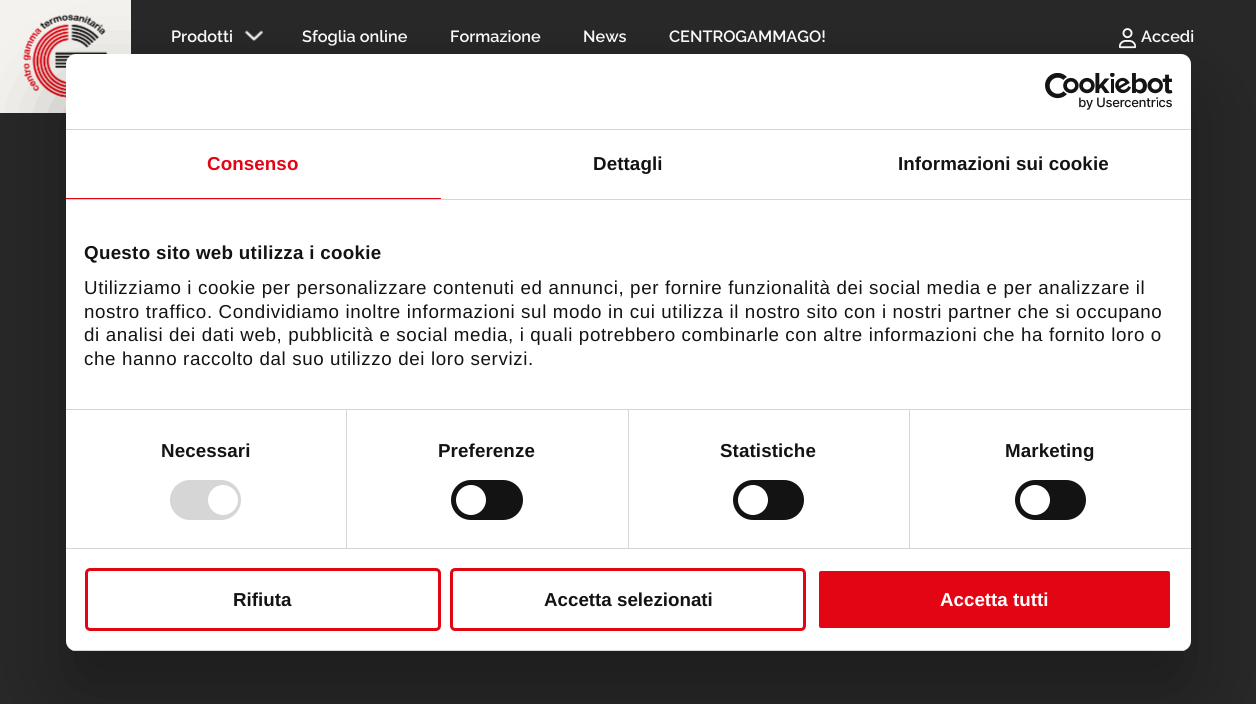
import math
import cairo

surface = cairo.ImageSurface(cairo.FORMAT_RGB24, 1256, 704)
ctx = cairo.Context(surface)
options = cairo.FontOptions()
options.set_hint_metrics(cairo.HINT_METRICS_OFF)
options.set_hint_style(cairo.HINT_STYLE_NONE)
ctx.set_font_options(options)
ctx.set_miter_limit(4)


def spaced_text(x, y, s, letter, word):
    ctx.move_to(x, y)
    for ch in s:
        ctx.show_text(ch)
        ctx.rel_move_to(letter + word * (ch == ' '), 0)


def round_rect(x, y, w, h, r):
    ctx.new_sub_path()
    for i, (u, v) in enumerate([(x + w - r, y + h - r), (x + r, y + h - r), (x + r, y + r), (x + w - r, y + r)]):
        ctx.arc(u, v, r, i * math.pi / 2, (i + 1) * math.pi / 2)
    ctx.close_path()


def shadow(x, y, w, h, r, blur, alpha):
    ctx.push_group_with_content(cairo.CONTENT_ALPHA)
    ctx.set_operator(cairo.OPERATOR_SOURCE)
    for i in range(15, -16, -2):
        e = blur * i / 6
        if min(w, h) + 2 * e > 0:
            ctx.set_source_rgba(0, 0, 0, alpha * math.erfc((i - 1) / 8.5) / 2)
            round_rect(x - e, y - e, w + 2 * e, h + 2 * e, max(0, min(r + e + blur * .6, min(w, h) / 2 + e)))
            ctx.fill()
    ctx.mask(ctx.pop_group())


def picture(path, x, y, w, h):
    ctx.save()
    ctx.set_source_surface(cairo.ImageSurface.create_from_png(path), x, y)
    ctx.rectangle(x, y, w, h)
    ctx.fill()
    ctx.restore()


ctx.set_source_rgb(0.157, 0.157, 0.157)
ctx.paint()
ctx.set_source_rgb(0.957, 0.949, 0.933)
ctx.rectangle(0, 0, 131, 113)
ctx.fill()
picture("img1.png", 23, 14, 85, 84)
ctx.select_font_face("Raleway SemiBold")
ctx.set_font_size(16.25)
ctx.set_source_rgb(1, 1, 1)
ctx.move_to(171, 42)
ctx.show_text("Prodotti")
picture("img2.png", 244, 30, 20, 11)
ctx.move_to(302, 42)
ctx.show_text("Sfoglia online")
ctx.move_to(450, 42)
ctx.show_text("Formazione")
ctx.move_to(583, 42)
ctx.show_text("News")
ctx.move_to(669, 42)
ctx.show_text("CENTROGAMMAGO!")
picture("img3.png", 1119, 28, 17, 21)
ctx.move_to(1141, 42)
ctx.show_text("Accedi")
ctx.set_source_rgb(0, 0, 0)
shadow(66, 94, 1125, 597, 10, 42.5, 0.3)
ctx.set_source_rgb(1, 1, 1)
round_rect(66, 54, 1125, 597, 10)
ctx.fill()
ctx.set_source_rgb(0.839, 0.839, 0.839)
ctx.rectangle(66, 129, 1125, 1)
ctx.fill()
picture("img4.png", 1045, 73, 128, 37)
ctx.rectangle(66, 199, 1125, 1)
ctx.fill()
ctx.set_source_rgb(0.89, 0.02, 0.075)
ctx.rectangle(66, 198, 375, 1)
ctx.fill()
ctx.select_font_face("Liberation Sans", cairo.FONT_SLANT_NORMAL, cairo.FONT_WEIGHT_BOLD)
ctx.set_font_size(18.75)
spaced_text(207, 170, "Consenso", 0.1, 0)
ctx.set_source_rgb(0.078, 0.078, 0.078)
spaced_text(593, 170, "Dettagli", 0.1, 0)
spaced_text(898, 170, "Informazioni sui cookie", 0.1, 0)
ctx.set_source_rgb(0.839, 0.839, 0.839)
ctx.rectangle(66, 409, 1125, 1)
ctx.fill()
ctx.set_source_rgb(0.078, 0.078, 0.078)
spaced_text(84, 259, "Questo sito web utilizza i cookie", 0.3, 0)
ctx.select_font_face("Liberation Sans")
spaced_text(84, 294, "Utilizziamo i cookie per personalizzare contenuti ed annunci, per fornire funzionalità dei social media e per analizzare il", 0.62, 0)
spaced_text(84, 318, "nostro traffico. Condividiamo inoltre informazioni sul modo in cui utilizza il nostro sito con i nostri partner che si occupano", 0.62, 0)
spaced_text(84, 341, "di analisi dei dati web, pubblicità e social media, i quali potrebbero combinarle con altre informazioni che ha fornito loro o", 0.62, 0)
spaced_text(84, 365, "che hanno raccolto dal suo utilizzo dei loro servizi.", 0.62, 0)
ctx.set_source_rgb(0.839, 0.839, 0.839)
ctx.rectangle(66, 548, 1125, 1)
ctx.fill()
ctx.rectangle(346, 410, 1, 138)
ctx.fill()
ctx.select_font_face("Liberation Sans", cairo.FONT_SLANT_NORMAL, cairo.FONT_WEIGHT_BOLD)
ctx.set_source_rgb(0.078, 0.078, 0.078)
spaced_text(161, 457, "Necessari", 0.1, 0)
ctx.set_source_rgb(0.839, 0.839, 0.839)
round_rect(170, 480, 71, 40, 20)
ctx.fill()
ctx.set_source_rgb(1, 1, 1)
ctx.arc(223, 500, 15, 0, 2 * math.pi)
ctx.fill()
ctx.set_source_rgb(0.839, 0.839, 0.839)
ctx.rectangle(628, 410, 1, 138)
ctx.fill()
ctx.set_source_rgb(0.078, 0.078, 0.078)
spaced_text(438, 457, "Preferenze", 0.1, 0)
round_rect(451, 480, 72, 40, 20)
ctx.fill()
ctx.set_source_rgb(1, 1, 1)
ctx.arc(471, 500, 15, 0, 2 * math.pi)
ctx.fill()
ctx.set_source_rgb(0.839, 0.839, 0.839)
ctx.rectangle(909, 410, 1, 138)
ctx.fill()
ctx.set_source_rgb(0.078, 0.078, 0.078)
spaced_text(720, 457, "Statistiche", 0.1, 0)
round_rect(733, 480, 71, 40, 20)
ctx.fill()
ctx.set_source_rgb(1, 1, 1)
ctx.arc(753, 500, 15, 0, 2 * math.pi)
ctx.fill()
ctx.set_source_rgb(0.078, 0.078, 0.078)
spaced_text(1005, 457, "Marketing", 0.1, 0)
round_rect(1015, 480, 71, 40, 20)
ctx.fill()
ctx.set_source_rgb(1, 1, 1)
ctx.arc(1035, 500, 15, 0, 2 * math.pi)
ctx.fill()
ctx.save()
round_rect(66, 54, 1125, 597, 10)
ctx.clip()
ctx.set_source_rgb(0.839, 0.839, 0.839)
ctx.rectangle(66, 650, 1125, 1)
ctx.fill()
ctx.restore()
round_rect(86.5, 569.5, 353, 60, 3.5)
ctx.set_source_rgb(0.89, 0.02, 0.075)
ctx.set_line_width(3)
ctx.stroke()
ctx.set_source_rgb(0.078, 0.078, 0.078)
ctx.move_to(233, 606)
ctx.show_text("Rifiuta")
round_rect(451.5, 569.5, 353, 60, 3.5)
ctx.set_source_rgb(0.89, 0.02, 0.075)
ctx.stroke()
ctx.set_source_rgb(0.078, 0.078, 0.078)
ctx.move_to(544, 606)
ctx.show_text("Accetta selezionati")
ctx.set_source_rgb(0.89, 0.02, 0.075)
round_rect(817.5, 569.5, 354, 60, 3.5)
ctx.fill_preserve()
ctx.set_source_rgb(1, 1, 1)
ctx.stroke()
ctx.move_to(940, 606)
ctx.show_text("Accetta tutti")
surface.write_to_png("page.png")
